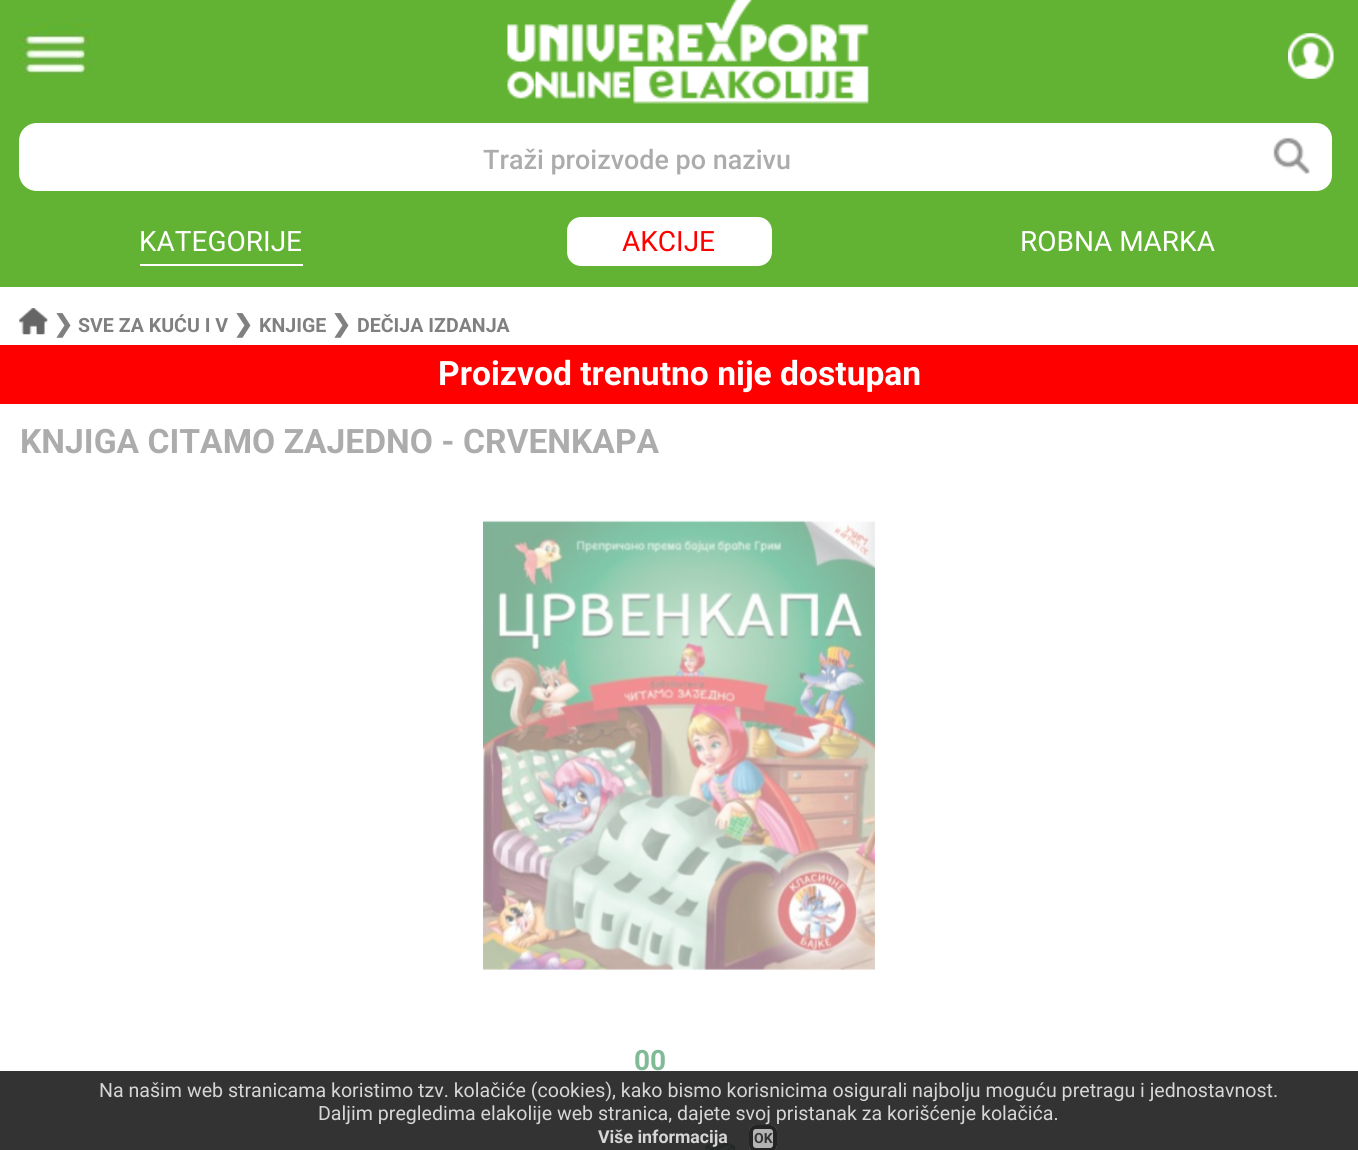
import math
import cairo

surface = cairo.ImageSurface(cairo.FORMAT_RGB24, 1358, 1150)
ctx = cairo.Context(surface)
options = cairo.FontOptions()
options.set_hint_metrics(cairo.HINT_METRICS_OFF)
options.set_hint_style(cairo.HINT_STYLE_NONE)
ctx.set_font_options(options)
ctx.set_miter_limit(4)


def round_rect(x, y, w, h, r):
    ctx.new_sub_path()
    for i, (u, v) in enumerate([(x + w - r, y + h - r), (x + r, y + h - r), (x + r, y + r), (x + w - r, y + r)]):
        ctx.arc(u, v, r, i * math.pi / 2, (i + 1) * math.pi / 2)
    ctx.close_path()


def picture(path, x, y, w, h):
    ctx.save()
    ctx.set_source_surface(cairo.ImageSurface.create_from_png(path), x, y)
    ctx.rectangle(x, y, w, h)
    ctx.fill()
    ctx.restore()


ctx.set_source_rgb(1, 1, 1)
ctx.paint()
ctx.set_source_rgb(0.384, 0.702, 0.2)
ctx.rectangle(0, 0, 1358, 287)
ctx.fill()
picture("img1.png", 19, 19, 74, 56)
picture("img2.png", 507, 0, 362, 104)
picture("img3.png", 1288, 33, 46, 46)
ctx.set_source_rgb(1, 1, 1)
ctx.new_path()
ctx.move_to(37, 124)
ctx.line_to(1254, 124)
ctx.line_to(1254, 190)
ctx.line_to(37, 190)
ctx.curve_to(27.5, 190, 20, 182.5, 20, 173)
ctx.line_to(20, 141)
ctx.curve_to(20, 131.5, 27.5, 124, 37, 124)
ctx.close_path()
ctx.fill_preserve()
ctx.stroke()
ctx.select_font_face("Roboto Medium")
ctx.set_font_size(26.9)
ctx.set_source_rgb(0.675, 0.675, 0.675)
ctx.move_to(483, 169)
ctx.show_text("Traži proizvode po nazivu")
ctx.set_source_rgb(1, 1, 1)
ctx.new_path()
ctx.move_to(1255, 123)
ctx.line_to(1316, 123)
ctx.curve_to(1325, 123, 1332, 130, 1332, 139)
ctx.line_to(1332, 175)
ctx.curve_to(1332, 184, 1325, 191, 1316, 191)
ctx.line_to(1255, 191)
ctx.close_path()
ctx.fill()
picture("img4.png", 1273, 137, 37, 37)
ctx.select_font_face("Roboto")
ctx.set_font_size(28)
ctx.move_to(139, 251)
ctx.show_text("KATEGORIJE")
ctx.rectangle(140, 264, 163, 2)
ctx.fill()
round_rect(567, 217, 205, 49, 14)
ctx.fill()
ctx.set_source_rgb(1, 0, 0)
ctx.move_to(622, 251)
ctx.show_text("AKCIJE")
ctx.set_source_rgb(1, 1, 1)
ctx.move_to(1020, 251)
ctx.show_text("ROBNA MARKA")
picture("img5.png", 19, 308, 29, 27)
ctx.select_font_face("DejaVu Sans", cairo.FONT_SLANT_NORMAL, cairo.FONT_WEIGHT_BOLD)
ctx.set_font_size(24)
ctx.set_source_rgb(0.502, 0.502, 0.502)
ctx.move_to(53, 332)
ctx.show_text("❯")
ctx.select_font_face("Roboto", cairo.FONT_SLANT_NORMAL, cairo.FONT_WEIGHT_BOLD)
ctx.set_font_size(19.6)
ctx.move_to(78, 332)
ctx.show_text("SVE ZA KUĆU I V")
ctx.select_font_face("DejaVu Sans", cairo.FONT_SLANT_NORMAL, cairo.FONT_WEIGHT_BOLD)
ctx.set_font_size(24)
ctx.move_to(233, 332)
ctx.show_text("❯")
ctx.select_font_face("Roboto", cairo.FONT_SLANT_NORMAL, cairo.FONT_WEIGHT_BOLD)
ctx.set_font_size(19.6)
ctx.move_to(259, 332)
ctx.show_text("KNJIGE")
ctx.select_font_face("DejaVu Sans", cairo.FONT_SLANT_NORMAL, cairo.FONT_WEIGHT_BOLD)
ctx.set_font_size(24)
ctx.move_to(331, 332)
ctx.show_text("❯")
ctx.select_font_face("Roboto", cairo.FONT_SLANT_NORMAL, cairo.FONT_WEIGHT_BOLD)
ctx.set_font_size(19.6)
ctx.move_to(357, 332)
ctx.show_text("DEČIJA IZDANJA")
ctx.set_source_rgb(1, 0, 0)
ctx.rectangle(0, 345, 1358, 59)
ctx.fill()
ctx.set_font_size(33.6)
ctx.set_source_rgb(1, 1, 1)
ctx.move_to(438, 385)
ctx.show_text("Proizvod trenutno nije dostupan")
ctx.set_source_rgb(0.675, 0.675, 0.675)
ctx.move_to(20, 453)
ctx.show_text("KNJIGA CITAMO ZAJEDNO - CRVENKAPA")
picture("img6.png", 483, 520, 392, 450)
ctx.set_font_size(28)
ctx.set_source_rgb(0.502, 0.729, 0.588)
ctx.move_to(634, 1070)
ctx.show_text("00")
picture("img7.png", 705, 1139, 30, 11)
ctx.set_source_rgba(0, 0, 0, 0.8)
ctx.rectangle(0, 1071, 1358, 79)
ctx.fill()
ctx.select_font_face("Roboto")
ctx.set_font_size(19.6)
ctx.set_source_rgb(0.839, 0.839, 0.839)
ctx.move_to(99, 1097)
ctx.show_text("Na našim web stranicama koristimo tzv. kolačiće (cookies), kako bismo korisnicima osigurali najbolju moguću pretragu i jednostavnost.")
ctx.move_to(318, 1120)
ctx.show_text("Daljim pregledima elakolije web stranica, dajete svoj pristanak za korišćenje kolačića.")
ctx.select_font_face("Roboto", cairo.FONT_SLANT_NORMAL, cairo.FONT_WEIGHT_BOLD)
ctx.set_font_size(17.75)
ctx.move_to(598, 1143)
ctx.show_text("Više informacija")
ctx.set_source_rgba(0.827, 0.827, 0.827, 0.8)
round_rect(749, 1125, 28, 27, 7)
ctx.fill()
round_rect(751, 1127, 24, 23, 5)
ctx.set_source_rgba(0, 0, 0, 0.8)
ctx.set_line_width(4)
ctx.stroke()
ctx.set_font_size(14)
ctx.set_source_rgb(0.2, 0.2, 0.2)
ctx.move_to(754, 1143)
ctx.show_text("OK")
surface.write_to_png("page.png")
